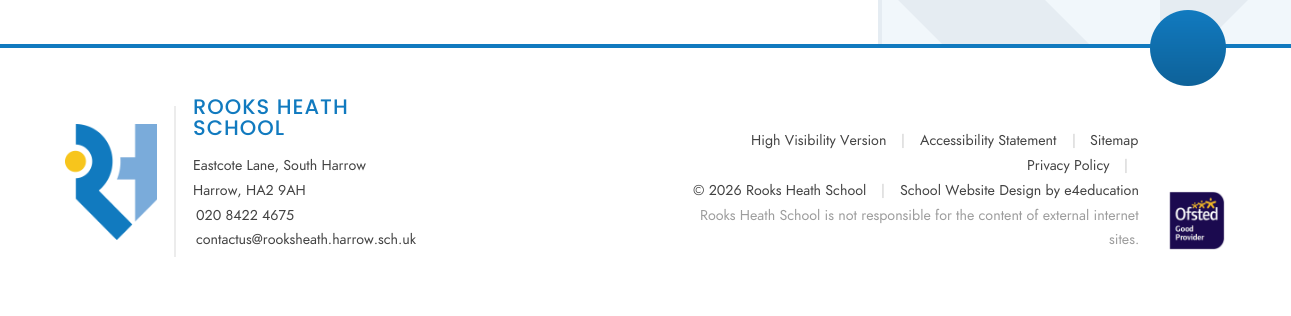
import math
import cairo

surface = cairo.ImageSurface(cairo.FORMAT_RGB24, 1291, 316)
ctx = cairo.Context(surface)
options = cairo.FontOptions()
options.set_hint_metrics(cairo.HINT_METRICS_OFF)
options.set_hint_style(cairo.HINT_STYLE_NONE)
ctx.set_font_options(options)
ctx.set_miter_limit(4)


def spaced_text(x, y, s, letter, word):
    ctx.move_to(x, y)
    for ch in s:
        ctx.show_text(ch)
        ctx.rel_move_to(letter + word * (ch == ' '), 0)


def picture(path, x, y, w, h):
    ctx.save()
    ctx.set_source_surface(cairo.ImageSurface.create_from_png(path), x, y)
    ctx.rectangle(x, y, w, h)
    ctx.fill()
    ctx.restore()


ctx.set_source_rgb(1, 1, 1)
ctx.paint()
ctx.set_source_rgb(0.945, 0.965, 0.984)
ctx.rectangle(882, 0, 409, 44)
ctx.fill()
ctx.set_source_rgb(0.898, 0.922, 0.949)
ctx.rectangle(878, 0, 4, 44)
ctx.fill()
ctx.new_path()
ctx.move_to(987, -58)
ctx.curve_to(1045, -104, 1067, -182, 1043, -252)
ctx.curve_to(1019, -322, 954, -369, 879, -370)
ctx.line_to(879, -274)
ctx.curve_to(923, -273, 957, -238, 957, -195)
ctx.curve_to(957, -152, 923, -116, 879, -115)
ctx.line_to(879, -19)
ctx.line_to(1073, 175)
ctx.line_to(1146, 101)
ctx.close_path()
ctx.fill()
ctx.new_path()
ctx.move_to(1160, -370)
ctx.line_to(1160, -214)
ctx.line_to(1090, -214)
ctx.curve_to(1093, -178, 1088, -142, 1074, -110)
ctx.line_to(1160, -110)
ctx.line_to(1160, 88)
ctx.line_to(1264, -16)
ctx.line_to(1264, -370)
ctx.close_path()
ctx.fill()
ctx.set_source_rgb(1, 1, 1)
ctx.rectangle(946, 48, 254, 127)
ctx.fill()
ctx.set_source_rgb(0.067, 0.478, 0.749)
ctx.rectangle(0, 44, 1291, 4)
ctx.fill()
ctx.arc(1188, 48, 38, 0, 2 * math.pi)
ctx.fill()
gradient = cairo.LinearGradient(1188, 10, 1188, 86)
gradient.add_color_stop_rgba(0, 0, 0, 0, 0)
gradient.add_color_stop_rgba(1, 0, 0, 0, 0.2)
ctx.set_source(gradient)
ctx.arc(1188, 48, 38, 0, 2 * math.pi)
ctx.fill()
picture("img1.png", 65, 124, 92, 116)
ctx.set_source_rgb(0.922, 0.922, 0.922)
ctx.rectangle(174, 106, 2, 151)
ctx.fill()
ctx.select_font_face("Poppins Medium")
ctx.set_font_size(21)
ctx.set_source_rgb(0.067, 0.478, 0.749)
spaced_text(193, 114, "ROOKS HEATH", 1, 0)
spaced_text(193, 135, "SCHOOL", 1, 0)
ctx.select_font_face("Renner")
ctx.set_font_size(14.25)
ctx.set_source_rgb(0.259, 0.259, 0.259)
ctx.move_to(193, 170)
ctx.show_text("Eastcote Lane, South Harrow")
ctx.move_to(193, 195)
ctx.show_text("Harrow, HA2 9AH")
ctx.move_to(196, 220)
ctx.show_text("020 8422 4675")
ctx.move_to(196, 244)
ctx.show_text("contactus@rooksheath.harrow.sch.uk")
ctx.move_to(751, 145)
ctx.show_text("High Visibility Version")
ctx.set_source_rgb(0.8, 0.8, 0.8)
ctx.move_to(901, 145)
ctx.show_text("|")
ctx.set_source_rgb(0.259, 0.259, 0.259)
ctx.move_to(920, 145)
ctx.show_text("Accessibility Statement")
ctx.set_source_rgb(0.8, 0.8, 0.8)
ctx.move_to(1072, 145)
ctx.show_text("|")
ctx.set_source_rgb(0.259, 0.259, 0.259)
ctx.move_to(1090, 145)
ctx.show_text("Sitemap")
ctx.move_to(1027, 170)
ctx.show_text("Privacy Policy")
ctx.set_source_rgb(0.8, 0.8, 0.8)
ctx.move_to(1124, 170)
ctx.show_text("|")
ctx.set_source_rgb(0.259, 0.259, 0.259)
ctx.move_to(693, 195)
ctx.show_text("© 2026 Rooks Heath School")
ctx.set_source_rgb(0.8, 0.8, 0.8)
ctx.move_to(881, 195)
ctx.show_text("|")
ctx.set_source_rgb(0.259, 0.259, 0.259)
ctx.move_to(900, 195)
ctx.show_text("School Website Design by e4education")
ctx.set_source_rgb(0.612, 0.612, 0.612)
ctx.move_to(700, 220)
ctx.show_text("Rooks Heath School is not responsible for the content of external internet")
ctx.move_to(1109, 244)
ctx.show_text("sites.")
picture("img2.png", 1169, 191, 56, 59)
surface.write_to_png("page.png")
